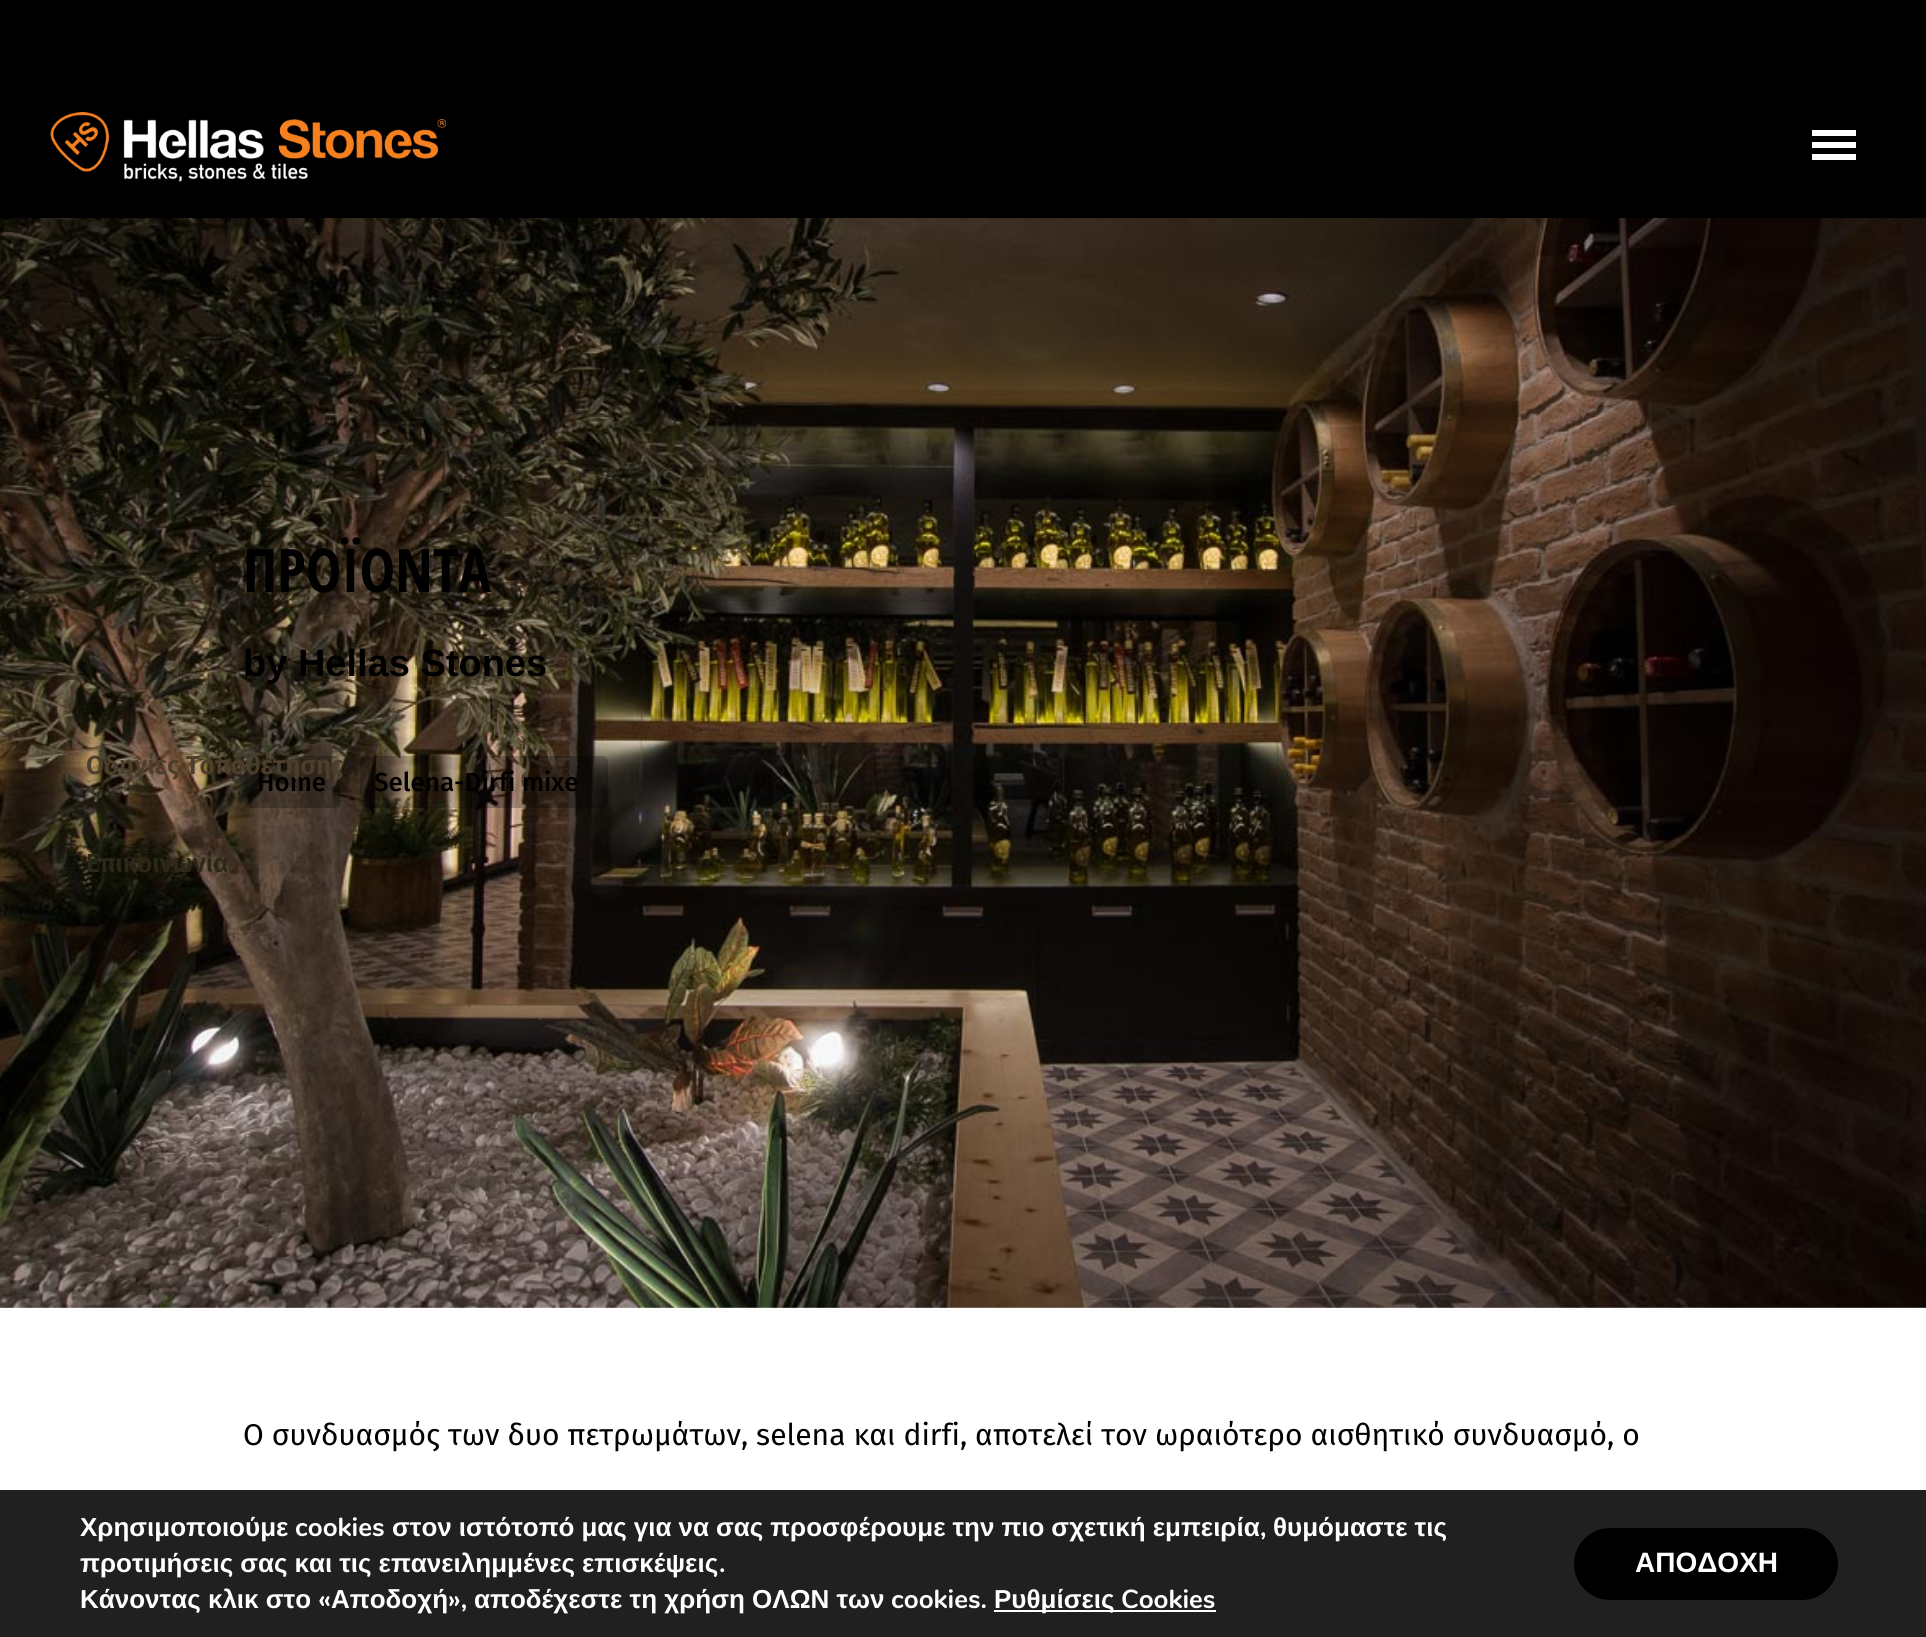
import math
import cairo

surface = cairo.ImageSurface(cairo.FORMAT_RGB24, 1926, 1637)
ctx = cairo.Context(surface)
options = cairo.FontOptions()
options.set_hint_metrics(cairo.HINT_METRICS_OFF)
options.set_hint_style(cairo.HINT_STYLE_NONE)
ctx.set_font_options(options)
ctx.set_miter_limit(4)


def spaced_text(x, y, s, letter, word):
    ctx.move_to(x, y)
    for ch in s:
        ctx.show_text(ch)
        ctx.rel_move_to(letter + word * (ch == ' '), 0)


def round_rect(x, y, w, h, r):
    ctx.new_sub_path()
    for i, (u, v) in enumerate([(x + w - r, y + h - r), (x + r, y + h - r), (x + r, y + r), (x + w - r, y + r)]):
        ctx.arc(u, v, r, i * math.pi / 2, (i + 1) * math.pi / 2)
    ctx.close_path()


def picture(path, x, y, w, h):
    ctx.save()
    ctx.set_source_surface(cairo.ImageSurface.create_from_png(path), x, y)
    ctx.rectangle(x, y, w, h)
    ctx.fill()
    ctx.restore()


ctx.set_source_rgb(1, 1, 1)
ctx.paint()
picture("img1.png", 0, 218, 1926, 1090)
ctx.select_font_face("Open Sans Condensed", cairo.FONT_SLANT_NORMAL, cairo.FONT_WEIGHT_BOLD)
ctx.set_font_size(60)
ctx.set_source_rgb(0, 0, 0)
ctx.move_to(243, 592)
ctx.show_text("ΠΡΟΪΟΝΤΑ")
ctx.select_font_face("Liberation Sans", cairo.FONT_SLANT_NORMAL, cairo.FONT_WEIGHT_BOLD)
ctx.set_font_size(38)
ctx.move_to(243, 676)
ctx.show_text("by Hellas Stones")
ctx.set_source_rgba(0, 0, 0, 0.25)
round_rect(244, 756, 96, 52, 6)
ctx.fill()
ctx.select_font_face("Fira Sans Medium")
ctx.set_font_size(26)
ctx.set_source_rgb(0, 0, 0)
ctx.move_to(257, 791)
ctx.show_text("Home")
ctx.set_source_rgba(0, 0, 0, 0.25)
round_rect(360, 756, 248, 52, 6)
ctx.fill()
ctx.set_source_rgb(0, 0, 0)
ctx.move_to(374, 791)
ctx.show_text("Selena-Dirfi mixe")
ctx.rectangle(0, 0, 1926, 218)
ctx.fill()
picture("img2.png", 50, 112, 396, 70)
ctx.set_source_rgb(1, 1, 1)
ctx.rectangle(1812, 154, 44, 6)
ctx.fill()
ctx.rectangle(1812, 142, 44, 6)
ctx.fill()
ctx.rectangle(1812, 130, 44, 6)
ctx.fill()
ctx.select_font_face("Fira Sans SemiBold")
ctx.set_source_rgb(0.302, 0.243, 0.173)
ctx.move_to(86, 774)
ctx.show_text("Οδηγίες Τοποθέτησης")
ctx.set_source_rgb(0.176, 0.153, 0.094)
ctx.move_to(86, 872)
ctx.show_text("Επικοινωνία")
ctx.select_font_face("Fira Sans")
ctx.set_font_size(30)
ctx.set_source_rgb(0, 0, 0)
ctx.move_to(243, 1445)
ctx.show_text("Ο συνδυασμός των δυο πετρωμάτων, selena και dirfi, αποτελεί τον ωραιότερο αισθητικό συνδυασμό, ο")
ctx.set_source_rgb(0.125, 0.125, 0.125)
ctx.rectangle(0, 1490, 1926, 147)
ctx.fill()
ctx.select_font_face("Liberation Sans", cairo.FONT_SLANT_NORMAL, cairo.FONT_WEIGHT_BOLD)
ctx.set_font_size(26)
ctx.set_source_rgb(1, 1, 1)
ctx.move_to(80, 1536)
ctx.show_text("Χρησιμοποιούμε")
ctx.select_font_face("Nunito", cairo.FONT_SLANT_NORMAL, cairo.FONT_WEIGHT_BOLD)
ctx.move_to(295, 1536)
ctx.show_text("cookies")
ctx.select_font_face("Liberation Sans", cairo.FONT_SLANT_NORMAL, cairo.FONT_WEIGHT_BOLD)
spaced_text(392, 1536, "στον ιστότοπό μας για να σας προσφέρουμε την πιο σχετική εμπειρία", 0, -0.25)
ctx.select_font_face("Nunito", cairo.FONT_SLANT_NORMAL, cairo.FONT_WEIGHT_BOLD)
ctx.move_to(1260, 1536)
ctx.show_text(",")
ctx.select_font_face("Liberation Sans", cairo.FONT_SLANT_NORMAL, cairo.FONT_WEIGHT_BOLD)
spaced_text(1273, 1536, "θυμόμαστε τις", 0, -0.25)
spaced_text(80, 1572, "προτιμήσεις σας και τις επανειλημμένες επισκέψεις", 0, -0.25)
ctx.select_font_face("Nunito", cairo.FONT_SLANT_NORMAL, cairo.FONT_WEIGHT_BOLD)
ctx.move_to(719, 1572)
ctx.show_text(".")
ctx.select_font_face("Liberation Sans", cairo.FONT_SLANT_NORMAL, cairo.FONT_WEIGHT_BOLD)
ctx.move_to(80, 1608)
ctx.show_text("Κάνοντας κλικ στο")
ctx.select_font_face("Nunito", cairo.FONT_SLANT_NORMAL, cairo.FONT_WEIGHT_BOLD)
ctx.move_to(318, 1608)
ctx.show_text("«")
ctx.select_font_face("Liberation Sans", cairo.FONT_SLANT_NORMAL, cairo.FONT_WEIGHT_BOLD)
ctx.move_to(331, 1608)
ctx.show_text("Αποδοχή")
ctx.select_font_face("Nunito", cairo.FONT_SLANT_NORMAL, cairo.FONT_WEIGHT_BOLD)
ctx.move_to(448, 1608)
ctx.show_text("»,")
ctx.select_font_face("Liberation Sans", cairo.FONT_SLANT_NORMAL, cairo.FONT_WEIGHT_BOLD)
ctx.move_to(474, 1608)
ctx.show_text("αποδέχεστε τη χρήση ΟΛΩΝ των")
ctx.select_font_face("Nunito", cairo.FONT_SLANT_NORMAL, cairo.FONT_WEIGHT_BOLD)
ctx.move_to(891, 1608)
ctx.show_text("cookies.")
ctx.rectangle(994, 1610, 222, 2)
ctx.fill()
ctx.select_font_face("Liberation Sans", cairo.FONT_SLANT_NORMAL, cairo.FONT_WEIGHT_BOLD)
ctx.move_to(994, 1608)
ctx.show_text("Ρυθμίσεις")
ctx.select_font_face("Nunito", cairo.FONT_SLANT_NORMAL, cairo.FONT_WEIGHT_BOLD)
ctx.move_to(1121, 1608)
ctx.show_text("Cookies")
ctx.set_source_rgb(0, 0, 0)
round_rect(1574, 1528, 264, 72, 36)
ctx.fill()
ctx.select_font_face("Liberation Sans", cairo.FONT_SLANT_NORMAL, cairo.FONT_WEIGHT_BOLD)
ctx.set_font_size(28)
ctx.set_source_rgb(1, 1, 1)
ctx.move_to(1635, 1572)
ctx.show_text("ΑΠΟΔΟΧΗ")
surface.write_to_png("page.png")
